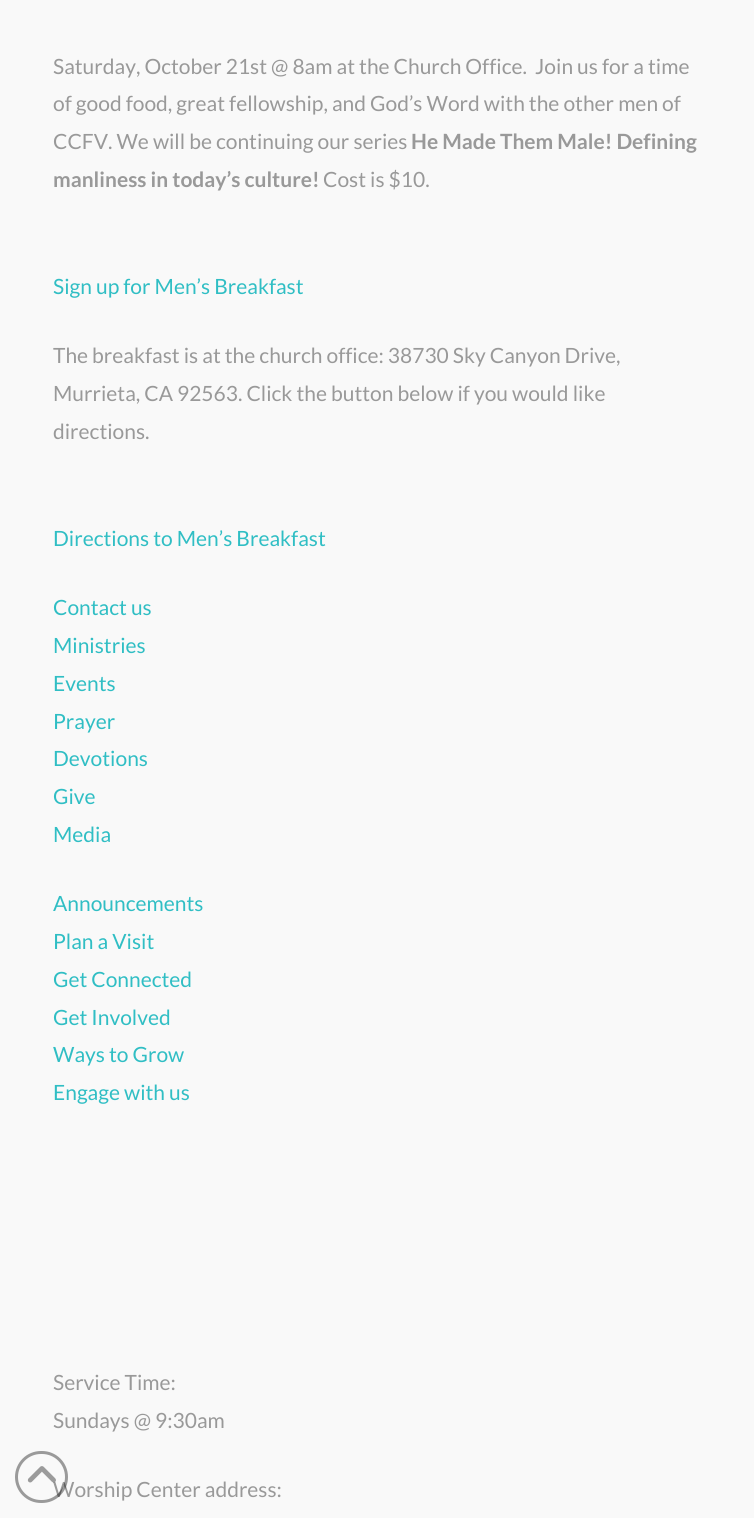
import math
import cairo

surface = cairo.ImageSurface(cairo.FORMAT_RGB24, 754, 1518)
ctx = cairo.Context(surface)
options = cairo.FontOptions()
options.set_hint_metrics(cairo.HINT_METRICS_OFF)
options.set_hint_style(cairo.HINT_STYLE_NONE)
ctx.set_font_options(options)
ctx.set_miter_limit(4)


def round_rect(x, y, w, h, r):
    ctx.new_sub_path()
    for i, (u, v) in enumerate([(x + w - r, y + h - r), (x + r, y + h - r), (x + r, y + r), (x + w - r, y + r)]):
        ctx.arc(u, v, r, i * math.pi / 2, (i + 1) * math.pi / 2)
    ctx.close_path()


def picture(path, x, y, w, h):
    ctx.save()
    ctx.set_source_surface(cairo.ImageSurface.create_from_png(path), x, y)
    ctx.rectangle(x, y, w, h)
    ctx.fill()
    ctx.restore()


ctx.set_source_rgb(0.976, 0.976, 0.976)
ctx.paint()
ctx.select_font_face("Lato")
ctx.set_font_size(21)
ctx.set_source_rgb(0.6, 0.6, 0.6)
ctx.move_to(53, 1497)
ctx.show_text("Worship Center address:")
round_rect(16.5, 1452.5, 50, 49, 24.5)
ctx.set_source_rgba(0, 0, 0, 0.38)
ctx.set_line_width(3)
ctx.stroke()
picture("img1.png", 27, 1466, 29, 17)
ctx.set_source_rgb(0.6, 0.6, 0.6)
ctx.move_to(53, 74)
ctx.show_text("Saturday, October 21st @ 8am at the Church Office.  Join us for a time")
ctx.move_to(53, 111)
ctx.show_text("of good food, great fellowship, and God’s Word with the other men of")
ctx.move_to(53, 149)
ctx.show_text("CCFV. We will be continuing our series")
ctx.select_font_face("Lato", cairo.FONT_SLANT_NORMAL, cairo.FONT_WEIGHT_BOLD)
ctx.move_to(411, 149)
ctx.show_text("He Made Them Male! Defining")
ctx.move_to(53, 187)
ctx.show_text("manliness in today’s culture!")
ctx.select_font_face("Lato")
ctx.move_to(323, 187)
ctx.show_text("Cost is $10.")
ctx.set_source_rgb(0.188, 0.745, 0.769)
ctx.move_to(53, 294)
ctx.show_text("Sign up for Men’s Breakfast")
ctx.set_source_rgb(0.6, 0.6, 0.6)
ctx.move_to(53, 363)
ctx.show_text("The breakfast is at the church office: 38730 Sky Canyon Drive,")
ctx.move_to(53, 401)
ctx.show_text("Murrieta, CA 92563. Click the button below if you would like")
ctx.move_to(53, 439)
ctx.show_text("directions.")
ctx.set_source_rgb(0.188, 0.745, 0.769)
ctx.move_to(53, 546)
ctx.show_text("Directions to Men’s Breakfast")
ctx.move_to(53, 615)
ctx.show_text("Contact us")
ctx.move_to(53, 653)
ctx.show_text("Ministries")
ctx.move_to(53, 691)
ctx.show_text("Events")
ctx.move_to(53, 729)
ctx.show_text("Prayer")
ctx.move_to(53, 766)
ctx.show_text("Devotions")
ctx.move_to(53, 804)
ctx.show_text("Give")
ctx.move_to(53, 842)
ctx.show_text("Media")
ctx.move_to(53, 911)
ctx.show_text("Announcements")
ctx.move_to(53, 949)
ctx.show_text("Plan a Visit")
ctx.move_to(53, 987)
ctx.show_text("Get Connected")
ctx.move_to(53, 1025)
ctx.show_text("Get Involved")
ctx.move_to(53, 1062)
ctx.show_text("Ways to Grow")
ctx.move_to(53, 1100)
ctx.show_text("Engage with us")
ctx.set_source_rgb(0.6, 0.6, 0.6)
ctx.move_to(53, 1390)
ctx.show_text("Service Time:")
ctx.move_to(53, 1428)
ctx.show_text("Sundays @ 9:30am")
surface.write_to_png("page.png")
